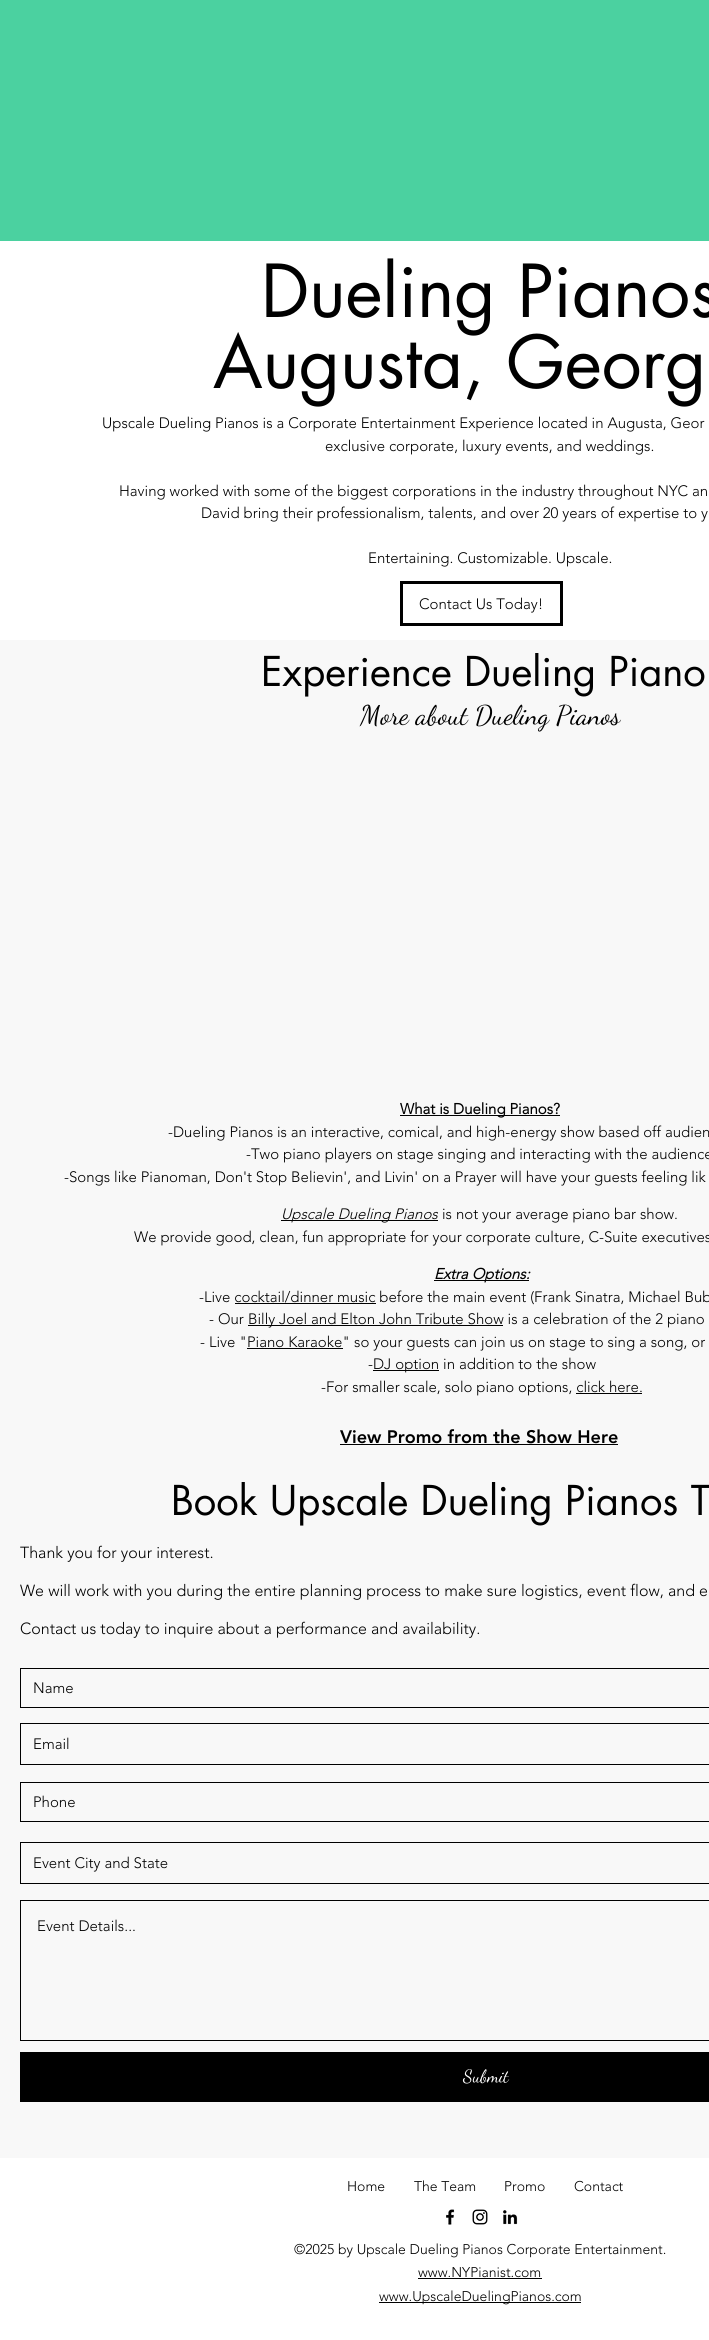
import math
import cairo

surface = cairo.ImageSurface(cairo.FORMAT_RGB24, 709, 2340)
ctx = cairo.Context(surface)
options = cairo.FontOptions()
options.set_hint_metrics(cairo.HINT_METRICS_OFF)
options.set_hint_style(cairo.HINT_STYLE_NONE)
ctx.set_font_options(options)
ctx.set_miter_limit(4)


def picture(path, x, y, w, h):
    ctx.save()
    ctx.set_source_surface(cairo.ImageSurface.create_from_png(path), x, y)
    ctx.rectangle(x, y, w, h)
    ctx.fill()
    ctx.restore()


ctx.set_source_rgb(1, 1, 1)
ctx.paint()
ctx.set_source_rgb(0.294, 0.82, 0.627)
ctx.rectangle(0, 0, 709, 241)
ctx.fill()
ctx.select_font_face("futura")
ctx.set_font_size(71)
ctx.set_source_rgb(0, 0, 0)
ctx.move_to(261, 317)
ctx.show_text("Dueling Pianos")
ctx.move_to(213, 388)
ctx.show_text("Augusta, Georg")
ctx.select_font_face("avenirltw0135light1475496 Light")
ctx.set_font_size(15)
ctx.move_to(102, 428)
ctx.show_text("Upscale Dueling Pianos is a Corporate Entertainment Experience located in Augusta, Geor")
ctx.move_to(325, 451)
ctx.show_text("exclusive corporate, luxury events, and weddings.")
ctx.move_to(119, 496)
ctx.show_text("Having worked with some of the biggest corporations in the industry throughout NYC an")
ctx.move_to(201, 518)
ctx.show_text("David bring their professionalism, talents, and over 20 years of expertise to y")
ctx.move_to(368, 563)
ctx.show_text("Entertaining. Customizable. Upscale.")
ctx.rectangle(401.5, 582.5, 160, 42)
ctx.set_line_width(3)
ctx.stroke()
ctx.move_to(419, 609)
ctx.show_text("Contact Us Today!")
ctx.set_source_rgb(0.969, 0.969, 0.969)
ctx.rectangle(0, 640, 709, 1518)
ctx.fill()
ctx.select_font_face("futura")
ctx.set_font_size(40)
ctx.set_source_rgb(0, 0, 0)
ctx.move_to(261, 686)
ctx.show_text("Experience Dueling Piano")
ctx.select_font_face("Dancing Script")
ctx.set_font_size(27)
ctx.move_to(360, 724)
ctx.show_text("More about Dueling Pianos")
ctx.rectangle(400, 1115, 160, 1)
ctx.fill()
ctx.select_font_face("avenirltw0135light1475496", cairo.FONT_SLANT_NORMAL, cairo.FONT_WEIGHT_BOLD)
ctx.set_font_size(15)
ctx.move_to(400, 1114)
ctx.show_text("What is Dueling Pianos?")
ctx.select_font_face("avenirltw0135light1475496 Light")
ctx.move_to(168, 1137)
ctx.show_text("-Dueling Pianos is an interactive, comical, and high-energy show based off audien")
ctx.move_to(246, 1159)
ctx.show_text("-Two piano players on stage singing and interacting with the audience")
ctx.move_to(64, 1182)
ctx.show_text("-Songs like Pianoman, Don't Stop Believin', and Livin' on a Prayer will have your guests feeling lik")
ctx.rectangle(281, 1220, 157, 1)
ctx.fill()
ctx.select_font_face("avenirltw0135light1475496 Light", cairo.FONT_SLANT_ITALIC)
ctx.move_to(281, 1219)
ctx.show_text("Upscale Dueling Pianos")
ctx.select_font_face("avenirltw0135light1475496 Light")
ctx.move_to(442, 1219)
ctx.show_text("is not your average piano bar show.")
ctx.move_to(134, 1242)
ctx.show_text("We provide good, clean, fun appropriate for your corporate culture, C-Suite executives")
ctx.rectangle(434, 1280, 95, 1)
ctx.fill()
ctx.select_font_face("avenirltw0135light1475496", cairo.FONT_SLANT_ITALIC, cairo.FONT_WEIGHT_BOLD)
ctx.move_to(434, 1279)
ctx.show_text("Extra Options:")
ctx.select_font_face("avenirltw0135light1475496 Light")
ctx.move_to(199, 1302)
ctx.show_text("-Live cocktail/dinner music before the main event (Frank Sinatra, Michael Bub")
ctx.rectangle(235, 1303, 141, 1)
ctx.fill()
ctx.move_to(209, 1324)
ctx.show_text("- Our")
ctx.rectangle(248, 1325, 255, 1)
ctx.fill()
ctx.move_to(248, 1324)
ctx.show_text("Billy Joel and Elton John Tribute Show is a celebration of the 2 piano")
ctx.move_to(200, 1347)
ctx.show_text("- Live \"Piano Karaoke\" so your guests can join us on stage to sing a song, or")
ctx.rectangle(247, 1348, 96, 1)
ctx.fill()
ctx.move_to(368, 1369)
ctx.show_text("-")
ctx.rectangle(373, 1370, 66, 1)
ctx.fill()
ctx.move_to(373, 1369)
ctx.show_text("DJ option in addition to the show")
ctx.move_to(321, 1392)
ctx.show_text("-For smaller scale, solo piano options, click here.")
ctx.rectangle(576, 1393, 66, 1)
ctx.fill()
ctx.select_font_face("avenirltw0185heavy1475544 Black")
ctx.set_font_size(18)
ctx.move_to(340, 1443)
ctx.show_text("View Promo from the Show Here")
ctx.rectangle(340, 1444, 278, 1)
ctx.fill()
ctx.select_font_face("futura")
ctx.set_font_size(40)
ctx.move_to(171, 1515)
ctx.show_text("Book Upscale Dueling Pianos T")
ctx.select_font_face("avenirltw0135light1475496 Light")
ctx.set_font_size(16)
ctx.move_to(20, 1558)
ctx.show_text("Thank you for your interest.")
ctx.move_to(20, 1596)
ctx.show_text("We will work with you during the entire planning process to make sure logistics, event flow, and e")
ctx.move_to(20, 1634)
ctx.show_text("Contact us today to inquire about a performance and availability.")
ctx.rectangle(20.5, 1668.5, 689, 39)
ctx.set_line_width(1)
ctx.stroke()
ctx.set_font_size(15)
ctx.move_to(33, 1693)
ctx.show_text("Name")
ctx.rectangle(20.5, 1723.5, 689, 41)
ctx.stroke()
ctx.move_to(33, 1749)
ctx.show_text("Email")
ctx.rectangle(20.5, 1782.5, 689, 39)
ctx.stroke()
ctx.move_to(33, 1807)
ctx.show_text("Phone")
ctx.rectangle(20.5, 1842.5, 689, 41)
ctx.stroke()
ctx.move_to(33, 1868)
ctx.show_text("Event City and State")
ctx.rectangle(20.5, 1900.5, 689, 140)
ctx.stroke()
ctx.move_to(37, 1931)
ctx.show_text("Event Details...")
ctx.rectangle(20, 2052, 689, 50)
ctx.fill()
ctx.select_font_face("Dancing Script")
ctx.set_font_size(18)
ctx.set_source_rgb(1, 1, 1)
ctx.move_to(463, 2082)
ctx.show_text("Submit")
ctx.select_font_face("avenirltw0135light1475496 Light")
ctx.set_font_size(14)
ctx.set_source_rgb(0, 0, 0)
ctx.move_to(347, 2191)
ctx.show_text("Home")
ctx.move_to(414, 2191)
ctx.show_text("The Team")
ctx.move_to(504, 2191)
ctx.show_text("Promo")
ctx.move_to(574, 2191)
ctx.show_text("Contact")
picture("img1.png", 446, 2209, 9, 16)
picture("img2.png", 472, 2209, 16, 16)
picture("img3.png", 503, 2210, 15, 15)
ctx.move_to(294, 2254)
ctx.show_text("©2025 by Upscale Dueling Pianos Corporate Entertainment.")
ctx.move_to(418, 2277)
ctx.show_text("www.NYPianist.com")
ctx.rectangle(418, 2278, 124, 1)
ctx.fill()
ctx.rectangle(379, 2302, 202, 1)
ctx.fill()
ctx.move_to(379, 2301)
ctx.show_text("www.UpscaleDuelingPianos.com")
surface.write_to_png("page.png")
